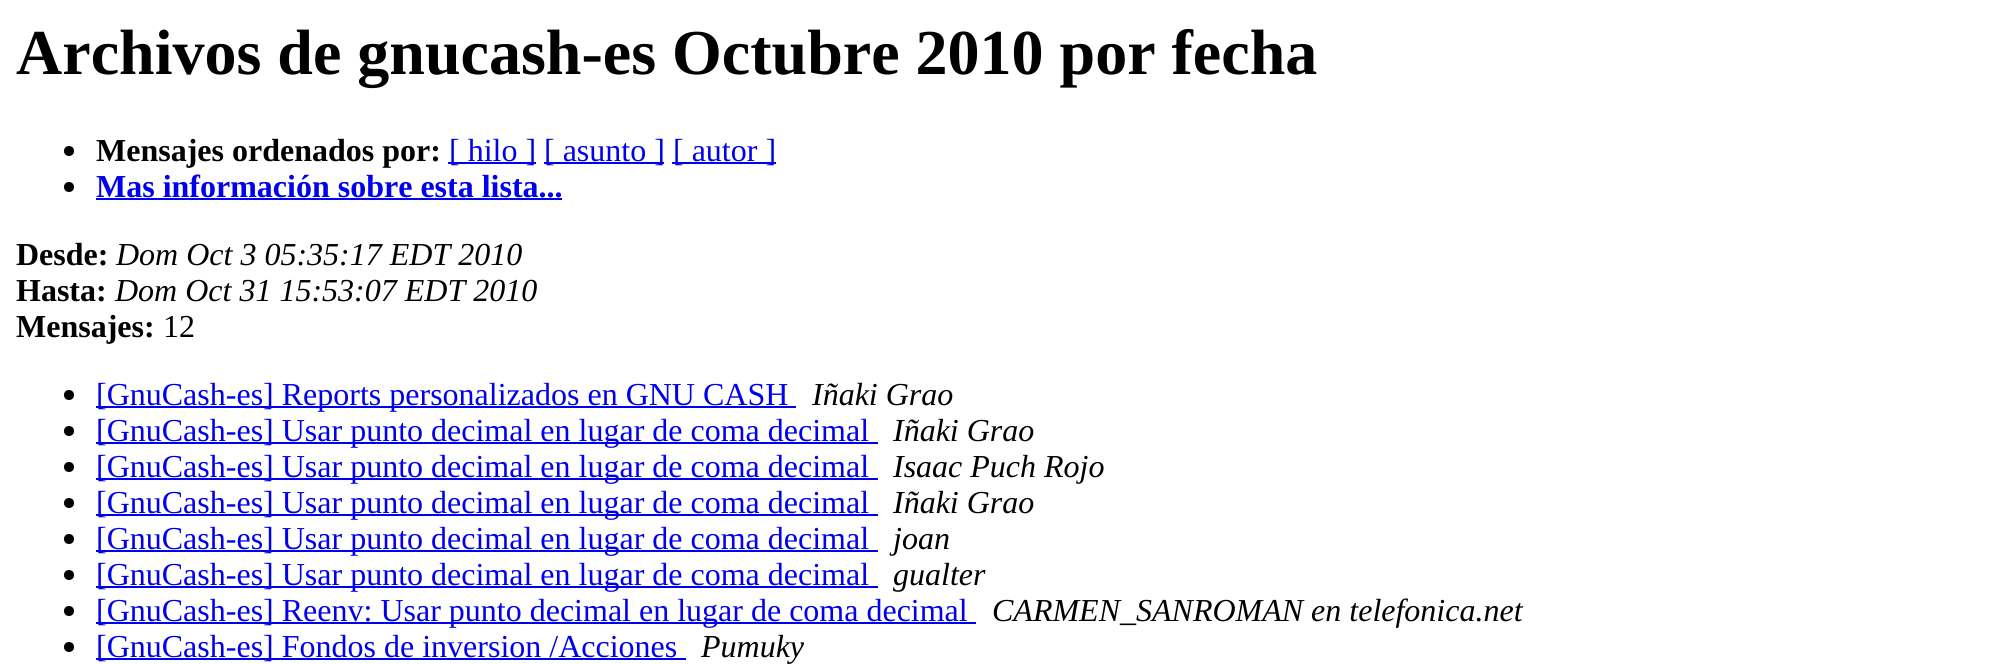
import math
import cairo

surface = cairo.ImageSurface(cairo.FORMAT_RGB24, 1995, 664)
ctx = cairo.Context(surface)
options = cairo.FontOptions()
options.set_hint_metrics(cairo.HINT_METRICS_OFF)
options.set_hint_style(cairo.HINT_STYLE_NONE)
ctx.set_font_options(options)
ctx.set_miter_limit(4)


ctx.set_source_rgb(1, 1, 1)
ctx.paint()
ctx.select_font_face("Liberation Serif", cairo.FONT_SLANT_NORMAL, cairo.FONT_WEIGHT_BOLD)
ctx.set_font_size(64)
ctx.set_source_rgb(0, 0, 0)
ctx.move_to(16, 74)
ctx.show_text("Archivos de gnucash-es Octubre 2010 por fecha")
ctx.new_path()
ctx.arc(69, 151, 5, 0, 2 * math.pi)
ctx.fill()
ctx.set_font_size(32)
ctx.move_to(96, 161)
ctx.show_text("Mensajes ordenados por:")
ctx.set_source_rgb(0, 0, 0.933)
ctx.rectangle(448, 162, 88, 2)
ctx.fill()
ctx.select_font_face("Liberation Serif")
ctx.move_to(449, 161)
ctx.show_text("[ hilo ]")
ctx.rectangle(544, 162, 120, 2)
ctx.fill()
ctx.move_to(544, 161)
ctx.show_text("[ asunto ]")
ctx.rectangle(672, 162, 104, 2)
ctx.fill()
ctx.move_to(673, 161)
ctx.show_text("[ autor ]")
ctx.set_source_rgb(0, 0, 0)
ctx.new_path()
ctx.arc(69, 187, 5, 0, 2 * math.pi)
ctx.fill()
ctx.select_font_face("Liberation Serif", cairo.FONT_SLANT_NORMAL, cairo.FONT_WEIGHT_BOLD)
ctx.set_source_rgb(0, 0, 0.933)
ctx.move_to(96, 197)
ctx.show_text("Mas información sobre esta lista...")
ctx.rectangle(96, 198, 466, 2)
ctx.fill()
ctx.set_source_rgb(0, 0, 0)
ctx.move_to(16, 265)
ctx.show_text("Desde:")
ctx.select_font_face("Liberation Serif", cairo.FONT_SLANT_ITALIC)
ctx.move_to(116, 265)
ctx.show_text("Dom Oct 3 05:35:17 EDT 2010")
ctx.select_font_face("Liberation Serif", cairo.FONT_SLANT_NORMAL, cairo.FONT_WEIGHT_BOLD)
ctx.move_to(16, 301)
ctx.show_text("Hasta:")
ctx.select_font_face("Liberation Serif", cairo.FONT_SLANT_ITALIC)
ctx.move_to(115, 301)
ctx.show_text("Dom Oct 31 15:53:07 EDT 2010")
ctx.select_font_face("Liberation Serif", cairo.FONT_SLANT_NORMAL, cairo.FONT_WEIGHT_BOLD)
ctx.move_to(16, 337)
ctx.show_text("Mensajes:")
ctx.select_font_face("Liberation Serif")
ctx.move_to(163, 337)
ctx.show_text("12")
ctx.new_path()
ctx.arc(69, 395, 5, 0, 2 * math.pi)
ctx.fill()
ctx.set_source_rgb(0, 0, 0.933)
ctx.rectangle(96, 406, 700, 2)
ctx.fill()
ctx.move_to(96, 405)
ctx.show_text("[GnuCash-es] Reports personalizados en GNU CASH")
ctx.select_font_face("Liberation Serif", cairo.FONT_SLANT_ITALIC)
ctx.set_source_rgb(0, 0, 0)
ctx.move_to(812, 405)
ctx.show_text("Iñaki Grao")
ctx.new_path()
ctx.arc(69, 431, 5, 0, 2 * math.pi)
ctx.fill()
ctx.set_source_rgb(0, 0, 0.933)
ctx.rectangle(96, 442, 782, 2)
ctx.fill()
ctx.select_font_face("Liberation Serif")
ctx.move_to(96, 441)
ctx.show_text("[GnuCash-es] Usar punto decimal en lugar de coma decimal")
ctx.select_font_face("Liberation Serif", cairo.FONT_SLANT_ITALIC)
ctx.set_source_rgb(0, 0, 0)
ctx.move_to(893, 441)
ctx.show_text("Iñaki Grao")
ctx.new_path()
ctx.arc(69, 467, 5, 0, 2 * math.pi)
ctx.fill()
ctx.set_source_rgb(0, 0, 0.933)
ctx.rectangle(96, 478, 782, 2)
ctx.fill()
ctx.select_font_face("Liberation Serif")
ctx.move_to(96, 477)
ctx.show_text("[GnuCash-es] Usar punto decimal en lugar de coma decimal")
ctx.select_font_face("Liberation Serif", cairo.FONT_SLANT_ITALIC)
ctx.set_source_rgb(0, 0, 0)
ctx.move_to(893, 477)
ctx.show_text("Isaac Puch Rojo")
ctx.new_path()
ctx.arc(69, 503, 5, 0, 2 * math.pi)
ctx.fill()
ctx.set_source_rgb(0, 0, 0.933)
ctx.rectangle(96, 514, 782, 2)
ctx.fill()
ctx.select_font_face("Liberation Serif")
ctx.move_to(96, 513)
ctx.show_text("[GnuCash-es] Usar punto decimal en lugar de coma decimal")
ctx.select_font_face("Liberation Serif", cairo.FONT_SLANT_ITALIC)
ctx.set_source_rgb(0, 0, 0)
ctx.move_to(893, 513)
ctx.show_text("Iñaki Grao")
ctx.new_path()
ctx.arc(69, 539, 5, 0, 2 * math.pi)
ctx.fill()
ctx.set_source_rgb(0, 0, 0.933)
ctx.rectangle(96, 550, 782, 2)
ctx.fill()
ctx.select_font_face("Liberation Serif")
ctx.move_to(96, 549)
ctx.show_text("[GnuCash-es] Usar punto decimal en lugar de coma decimal")
ctx.select_font_face("Liberation Serif", cairo.FONT_SLANT_ITALIC)
ctx.set_source_rgb(0, 0, 0)
ctx.move_to(893, 549)
ctx.show_text("joan")
ctx.new_path()
ctx.arc(69, 575, 5, 0, 2 * math.pi)
ctx.fill()
ctx.set_source_rgb(0, 0, 0.933)
ctx.rectangle(96, 586, 782, 2)
ctx.fill()
ctx.select_font_face("Liberation Serif")
ctx.move_to(96, 585)
ctx.show_text("[GnuCash-es] Usar punto decimal en lugar de coma decimal")
ctx.select_font_face("Liberation Serif", cairo.FONT_SLANT_ITALIC)
ctx.set_source_rgb(0, 0, 0)
ctx.move_to(893, 585)
ctx.show_text("gualter")
ctx.new_path()
ctx.arc(69, 611, 5, 0, 2 * math.pi)
ctx.fill()
ctx.set_source_rgb(0, 0, 0.933)
ctx.rectangle(96, 622, 880, 2)
ctx.fill()
ctx.select_font_face("Liberation Serif")
ctx.move_to(96, 621)
ctx.show_text("[GnuCash-es] Reenv: Usar punto decimal en lugar de coma decimal")
ctx.select_font_face("Liberation Serif", cairo.FONT_SLANT_ITALIC)
ctx.set_source_rgb(0, 0, 0)
ctx.move_to(992, 621)
ctx.show_text("CARMEN_SANROMAN en telefonica.net")
ctx.new_path()
ctx.arc(69, 647, 5, 0, 2 * math.pi)
ctx.fill()
ctx.set_source_rgb(0, 0, 0.933)
ctx.rectangle(96, 658, 590, 2)
ctx.fill()
ctx.select_font_face("Liberation Serif")
ctx.move_to(96, 657)
ctx.show_text("[GnuCash-es] Fondos de inversion /Acciones")
ctx.select_font_face("Liberation Serif", cairo.FONT_SLANT_ITALIC)
ctx.set_source_rgb(0, 0, 0)
ctx.move_to(701, 657)
ctx.show_text("Pumuky")
surface.write_to_png("page.png")
